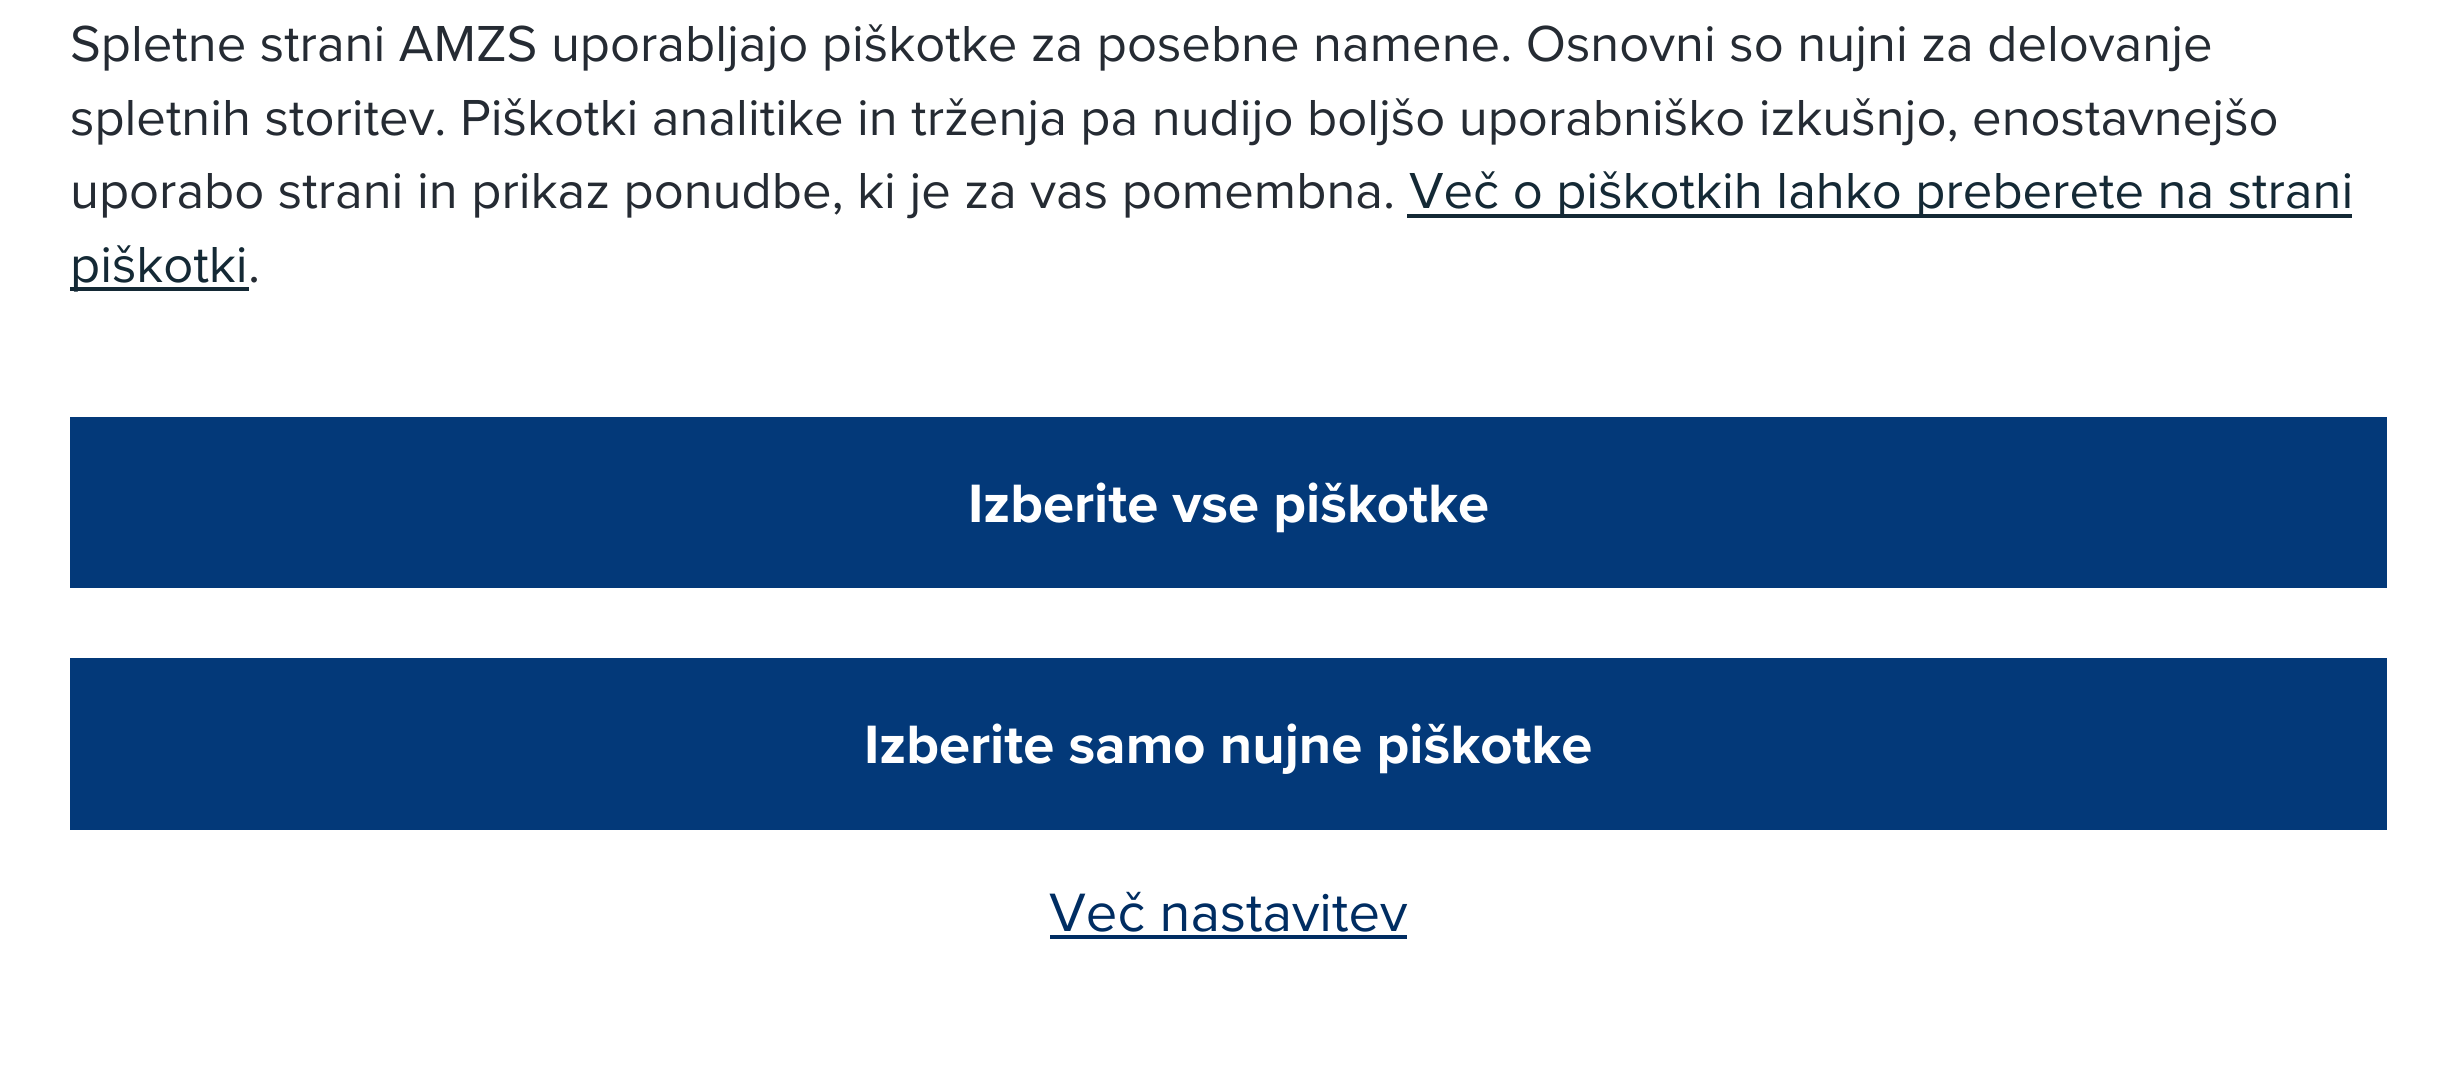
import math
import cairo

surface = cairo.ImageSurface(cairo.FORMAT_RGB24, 2455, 1067)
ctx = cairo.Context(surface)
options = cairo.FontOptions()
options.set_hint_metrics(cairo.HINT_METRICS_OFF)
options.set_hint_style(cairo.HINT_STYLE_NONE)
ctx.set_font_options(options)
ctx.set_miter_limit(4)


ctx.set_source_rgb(1, 1, 1)
ctx.paint()
ctx.select_font_face("Proxima Nova")
ctx.set_font_size(52.5)
ctx.set_source_rgb(0.145, 0.169, 0.2)
ctx.move_to(70, 61)
ctx.show_text("Spletne strani AMZS uporabljajo piškotke za posebne namene. Osnovni so nujni za delovanje")
ctx.move_to(70, 135)
ctx.show_text("spletnih storitev. Piškotki analitike in trženja pa nudijo boljšo uporabniško izkušnjo, enostavnejšo")
ctx.move_to(70, 208)
ctx.show_text("uporabo strani in prikaz ponudbe, ki je za vas pomembna.")
ctx.set_source_rgb(0.082, 0.161, 0.208)
ctx.rectangle(1407, 214, 945, 4)
ctx.fill()
ctx.move_to(1409, 208)
ctx.show_text("Več o piškotkih lahko preberete na strani")
ctx.rectangle(70, 287, 179, 4)
ctx.fill()
ctx.move_to(70, 282)
ctx.show_text("piškotki")
ctx.set_source_rgb(0.145, 0.169, 0.2)
ctx.move_to(248, 282)
ctx.show_text(".")
ctx.set_source_rgb(0.012, 0.224, 0.475)
ctx.rectangle(70, 417, 2317, 171)
ctx.fill()
ctx.select_font_face("Proxima Nova", cairo.FONT_SLANT_NORMAL, cairo.FONT_WEIGHT_BOLD)
ctx.set_font_size(56)
ctx.set_source_rgb(1, 1, 1)
ctx.move_to(968, 522)
ctx.show_text("Izberite vse piškotke")
ctx.set_source_rgb(0.012, 0.224, 0.475)
ctx.rectangle(70, 658, 2317, 172)
ctx.fill()
ctx.set_source_rgb(1, 1, 1)
ctx.move_to(864, 763)
ctx.show_text("Izberite samo nujne piškotke")
ctx.select_font_face("Proxima Nova")
ctx.set_source_rgb(0, 0.176, 0.384)
ctx.move_to(1049, 931)
ctx.show_text("Več nastavitev")
ctx.rectangle(1050, 935, 357, 4)
ctx.fill()
surface.write_to_png("page.png")
